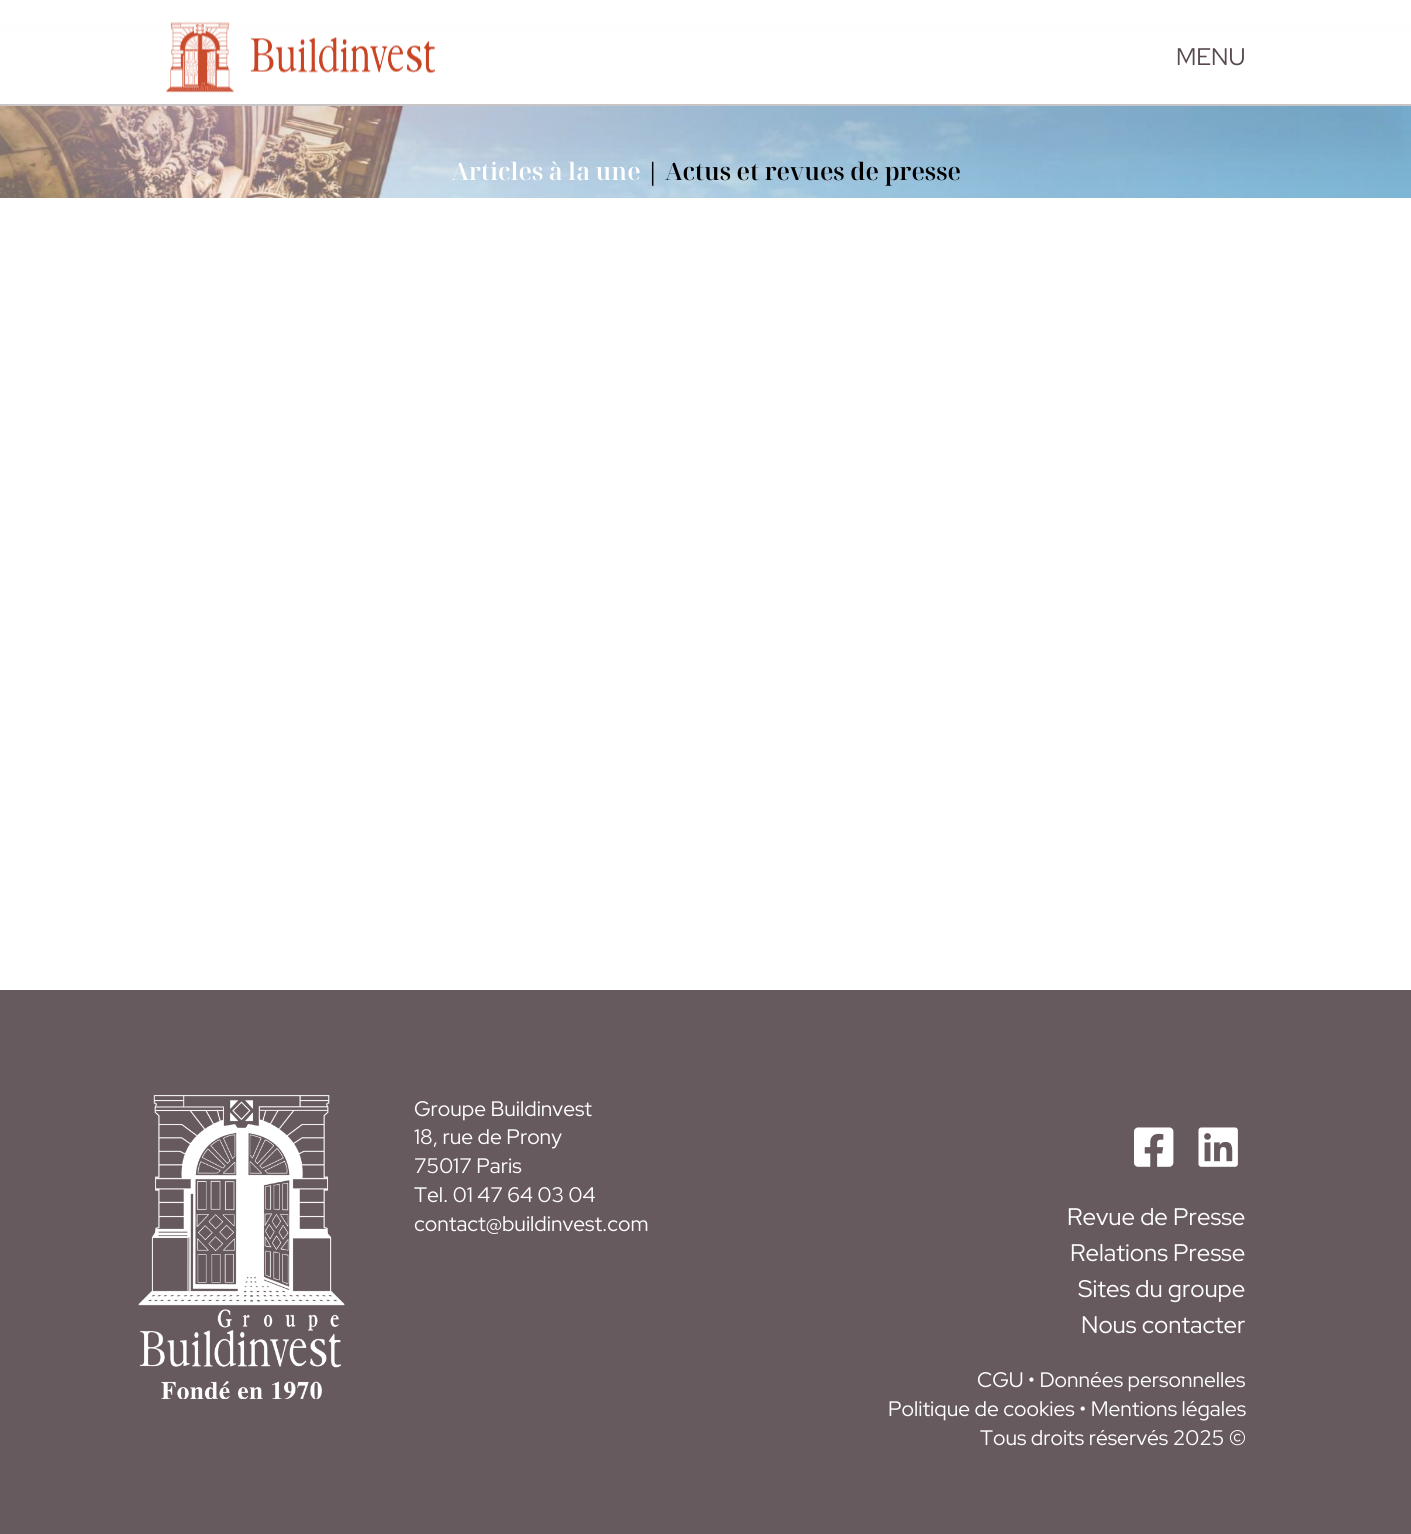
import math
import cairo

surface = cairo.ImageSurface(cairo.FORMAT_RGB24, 1411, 1534)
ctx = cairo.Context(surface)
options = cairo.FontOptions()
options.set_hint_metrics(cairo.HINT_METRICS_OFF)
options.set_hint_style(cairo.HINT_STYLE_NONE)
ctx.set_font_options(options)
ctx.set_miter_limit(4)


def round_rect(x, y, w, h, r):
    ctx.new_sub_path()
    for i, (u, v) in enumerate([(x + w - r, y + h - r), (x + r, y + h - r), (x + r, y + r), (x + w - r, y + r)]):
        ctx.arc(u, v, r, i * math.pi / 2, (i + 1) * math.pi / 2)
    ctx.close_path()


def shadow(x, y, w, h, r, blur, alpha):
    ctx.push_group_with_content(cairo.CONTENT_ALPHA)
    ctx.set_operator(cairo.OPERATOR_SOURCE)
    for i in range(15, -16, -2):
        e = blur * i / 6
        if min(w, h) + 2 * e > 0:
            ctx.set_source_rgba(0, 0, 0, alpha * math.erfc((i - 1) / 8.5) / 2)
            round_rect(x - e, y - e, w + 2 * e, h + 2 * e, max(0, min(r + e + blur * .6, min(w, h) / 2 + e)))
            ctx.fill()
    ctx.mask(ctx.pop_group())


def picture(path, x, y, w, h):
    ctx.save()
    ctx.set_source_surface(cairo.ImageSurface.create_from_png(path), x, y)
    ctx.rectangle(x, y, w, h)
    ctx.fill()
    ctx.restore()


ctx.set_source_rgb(1, 1, 1)
ctx.paint()
picture("img3.png", 0, 106, 1411, 92)
ctx.set_source_rgb(0.153, 0.078, 0.102)
shadow(0, 53, 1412, 105, 0, 20, 0.08)
ctx.set_source_rgb(1, 1, 1)
ctx.rectangle(0, 31, 1411, 73)
ctx.fill()
ctx.set_source_rgb(0.788, 0.769, 0.776)
ctx.rectangle(0, 104, 1411, 2)
ctx.fill()
picture("img1.png", 166, 22, 68, 71)
picture("img2.png", 250, 37, 185, 36)
ctx.select_font_face("Red Hat Display")
ctx.set_font_size(24)
ctx.set_source_rgb(0.345, 0.286, 0.306)
ctx.move_to(1176, 65)
ctx.show_text("MENU")
ctx.select_font_face("Noto Serif Display SemiBold")
ctx.set_source_rgb(1, 1, 1)
ctx.move_to(451, 180)
ctx.show_text("Articles à la une")
ctx.set_source_rgb(0, 0, 0)
ctx.move_to(646, 180)
ctx.show_text("| Actus et revues de presse")
ctx.set_source_rgb(0.404, 0.353, 0.369)
ctx.rectangle(0, 990, 1411, 544)
ctx.fill()
picture("img4.png", 138, 1095, 207, 304)
ctx.select_font_face("Red Hat Display")
ctx.set_font_size(21)
ctx.set_source_rgb(1, 1, 1)
ctx.move_to(414, 1116)
ctx.show_text("Groupe Buildinvest")
ctx.move_to(414, 1144)
ctx.show_text("18, rue de Prony")
ctx.move_to(414, 1173)
ctx.show_text("75017 Paris")
ctx.move_to(414, 1202)
ctx.show_text("Tel. 01 47 64 03 04")
ctx.move_to(414, 1231)
ctx.show_text("contact@buildinvest.com")
picture("img5.png", 1134, 1127, 40, 40)
picture("img6.png", 1198, 1127, 40, 40)
ctx.set_font_size(24)
ctx.move_to(1067, 1225)
ctx.show_text("Revue de Presse")
ctx.move_to(1070, 1261)
ctx.show_text("Relations Presse")
ctx.move_to(1078, 1297)
ctx.show_text("Sites du groupe")
ctx.move_to(1081, 1333)
ctx.show_text("Nous contacter")
ctx.set_font_size(21)
ctx.move_to(977, 1387)
ctx.show_text("CGU • Données personnelles")
ctx.move_to(888, 1416)
ctx.show_text("Politique de cookies • Mentions légales")
ctx.move_to(980, 1445)
ctx.show_text("Tous droits réservés 2025 ©")
surface.write_to_png("page.png")
